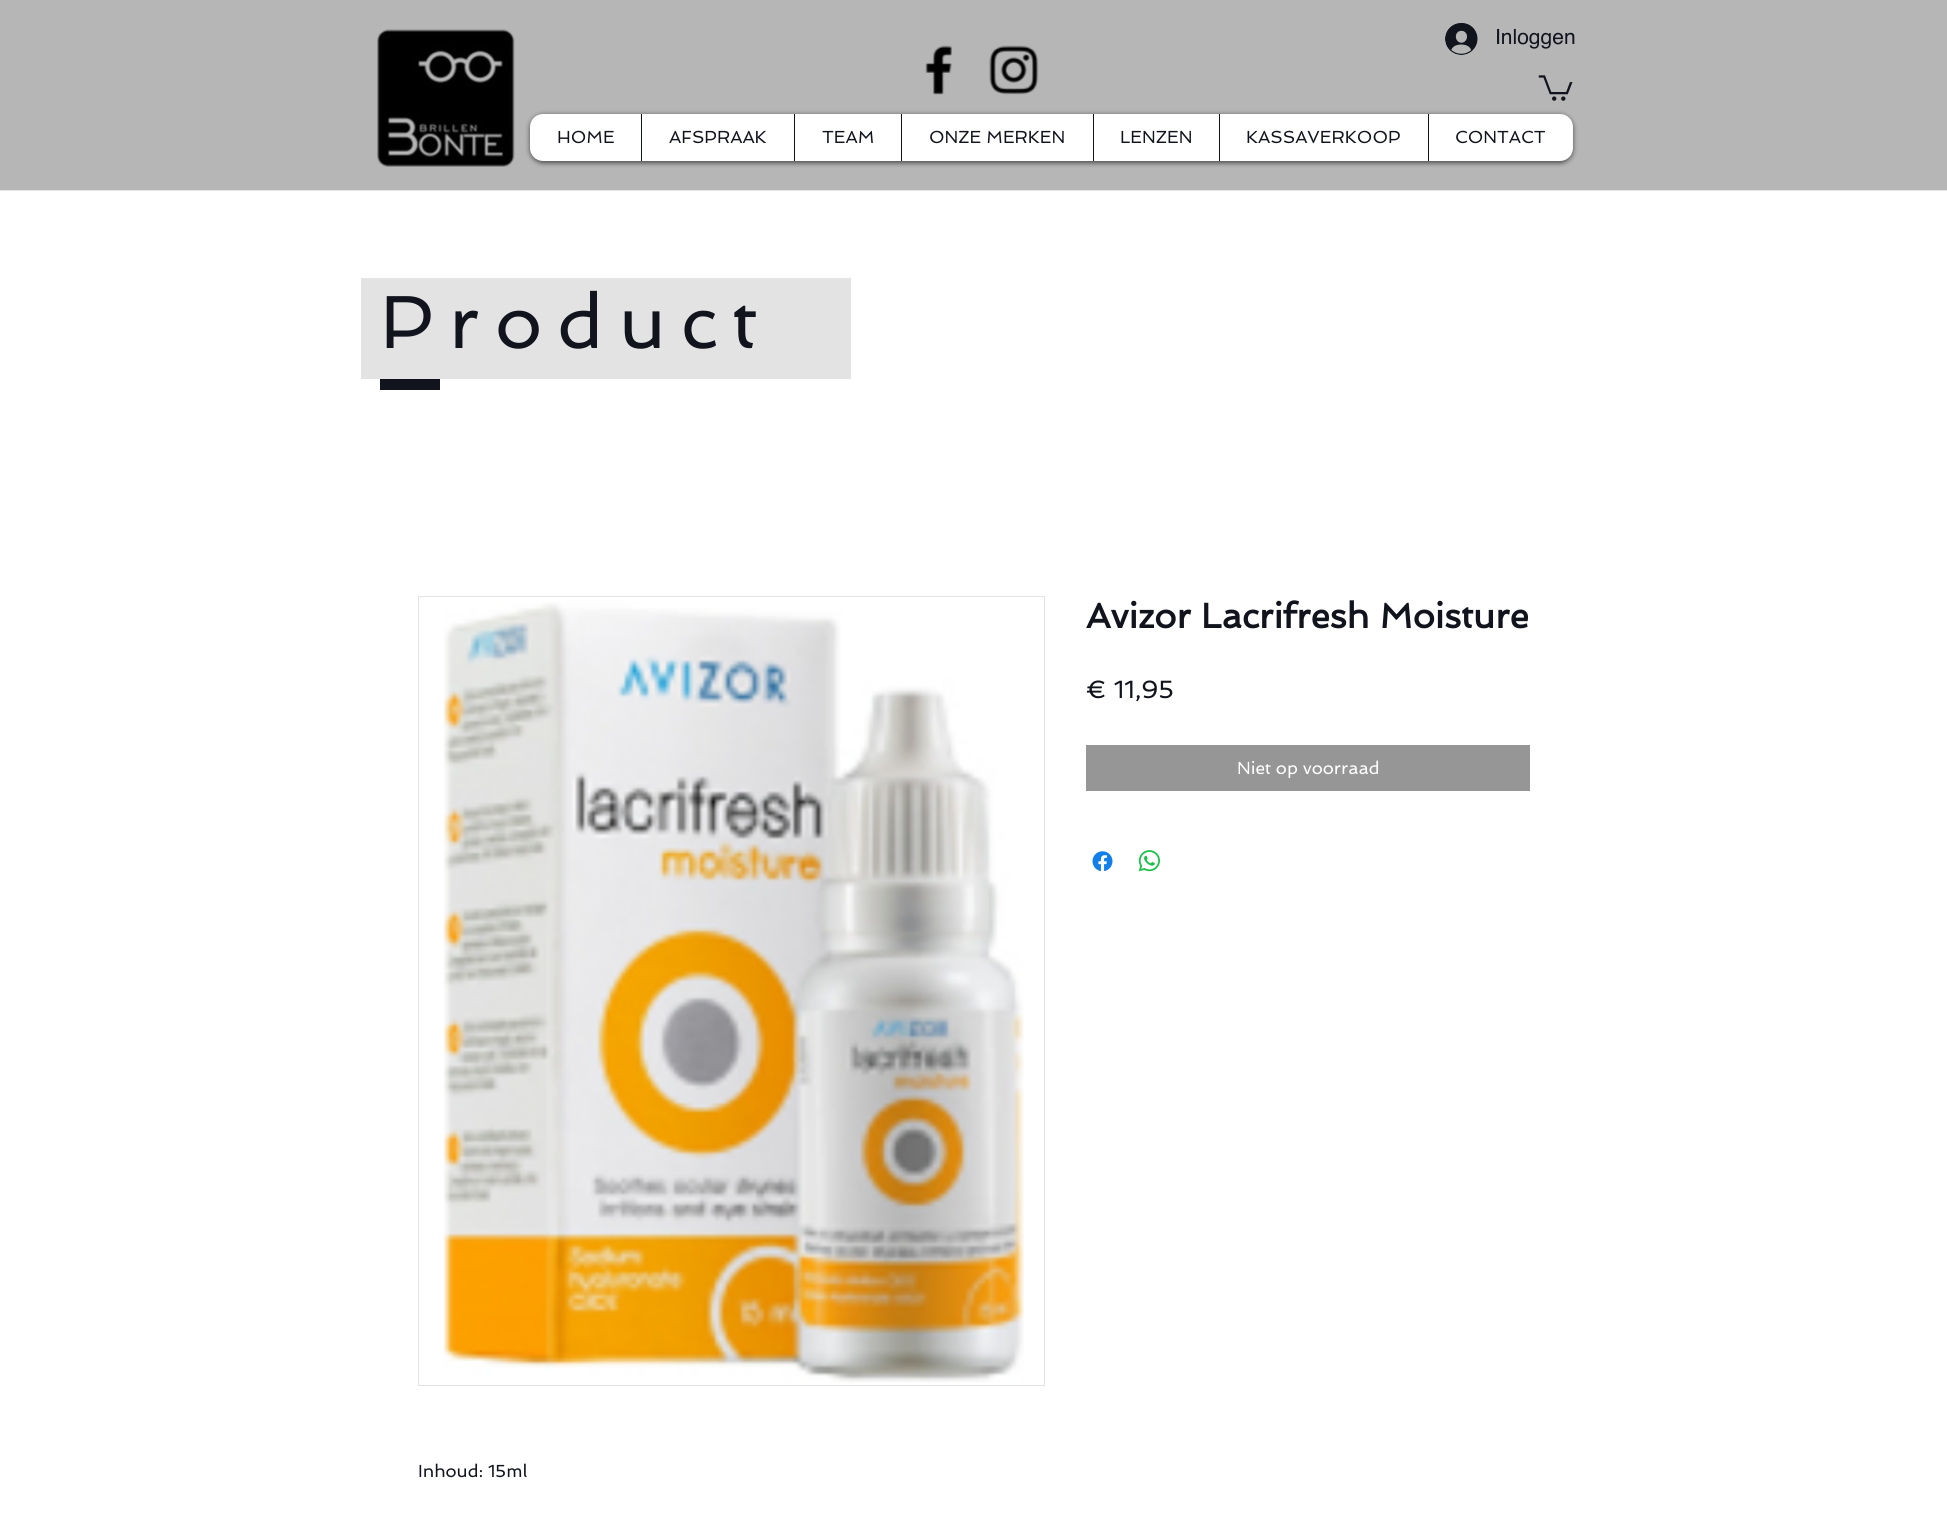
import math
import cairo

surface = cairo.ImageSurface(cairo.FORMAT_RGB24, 1947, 1518)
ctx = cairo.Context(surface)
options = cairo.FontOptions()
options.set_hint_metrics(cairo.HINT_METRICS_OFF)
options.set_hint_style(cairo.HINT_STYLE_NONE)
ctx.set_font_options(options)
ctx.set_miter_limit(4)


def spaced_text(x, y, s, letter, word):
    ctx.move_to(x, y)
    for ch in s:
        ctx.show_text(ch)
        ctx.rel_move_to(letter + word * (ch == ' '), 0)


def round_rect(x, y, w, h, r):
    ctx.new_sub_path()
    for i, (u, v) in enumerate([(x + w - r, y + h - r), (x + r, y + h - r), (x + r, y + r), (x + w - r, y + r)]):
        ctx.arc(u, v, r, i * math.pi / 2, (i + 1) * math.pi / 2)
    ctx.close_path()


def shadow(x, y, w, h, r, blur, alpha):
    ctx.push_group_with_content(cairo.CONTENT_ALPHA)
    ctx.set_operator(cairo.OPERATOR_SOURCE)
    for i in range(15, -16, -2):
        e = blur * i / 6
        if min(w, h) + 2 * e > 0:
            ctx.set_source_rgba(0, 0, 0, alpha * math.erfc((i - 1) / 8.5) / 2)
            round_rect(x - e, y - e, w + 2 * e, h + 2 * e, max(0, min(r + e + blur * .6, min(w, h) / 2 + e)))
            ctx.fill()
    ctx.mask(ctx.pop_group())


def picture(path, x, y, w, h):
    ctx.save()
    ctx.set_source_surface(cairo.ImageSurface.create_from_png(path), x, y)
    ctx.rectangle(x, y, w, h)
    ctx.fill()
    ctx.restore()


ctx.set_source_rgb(1, 1, 1)
ctx.paint()
ctx.set_source_rgb(0.89, 0.89, 0.89)
ctx.rectangle(0, 190, 1947, 1)
ctx.fill()
ctx.set_source_rgb(0.714, 0.714, 0.714)
ctx.rectangle(0, 0, 1947, 190)
ctx.fill()
picture("img1.png", 377, 29, 138, 138)
picture("img2.png", 925, 45, 27, 50)
picture("img3.png", 989, 45, 50, 50)
picture("img4.png", 1445, 23, 33, 32)
ctx.select_font_face("Helvetica")
ctx.set_font_size(21)
ctx.set_source_rgb(0.067, 0.078, 0.114)
ctx.move_to(1495, 44)
ctx.show_text("Inloggen")
picture("img5.png", 1538, 75, 35, 26)
ctx.set_source_rgb(0, 0, 0)
shadow(530, 115, 1043, 48, 13, 2.5, 0.6)
ctx.set_source_rgb(1, 1, 1)
round_rect(530, 114, 1043, 47, 13)
ctx.fill()
ctx.select_font_face("Spinnaker")
ctx.set_font_size(17.5)
ctx.set_source_rgb(0.067, 0.078, 0.114)
ctx.move_to(557, 143)
ctx.show_text("HOME")
ctx.rectangle(641, 114, 1, 47)
ctx.fill()
ctx.move_to(669, 143)
ctx.show_text("AFSPRAAK")
ctx.rectangle(794, 114, 1, 47)
ctx.fill()
ctx.move_to(822, 143)
ctx.show_text("TEAM")
ctx.rectangle(901, 114, 1, 47)
ctx.fill()
ctx.move_to(929, 143)
ctx.show_text("ONZE MERKEN")
ctx.rectangle(1093, 114, 1, 47)
ctx.fill()
ctx.move_to(1120, 143)
ctx.show_text("LENZEN")
ctx.rectangle(1219, 114, 1, 47)
ctx.fill()
ctx.move_to(1246, 143)
ctx.show_text("KASSAVERKOOP")
ctx.rectangle(1428, 114, 1, 47)
ctx.fill()
ctx.move_to(1455, 143)
ctx.show_text("CONTACT")
ctx.set_source_rgb(0.89, 0.89, 0.89)
ctx.rectangle(361, 278, 490, 101)
ctx.fill()
ctx.set_font_size(75)
ctx.set_source_rgb(0.067, 0.078, 0.114)
spaced_text(380, 348, "Product", 15, 0)
ctx.rectangle(380, 379, 60, 11)
ctx.fill()
ctx.select_font_face("Spinnaker", cairo.FONT_SLANT_NORMAL, cairo.FONT_WEIGHT_BOLD)
ctx.set_font_size(35)
ctx.move_to(1086, 628)
ctx.show_text("Avizor Lacrifresh Moisture")
ctx.select_font_face("Spinnaker")
ctx.set_font_size(25)
ctx.move_to(1086, 698)
ctx.show_text("€ 11,95")
ctx.set_source_rgb(0.588, 0.588, 0.588)
ctx.rectangle(1086, 745, 444, 46)
ctx.fill()
ctx.set_font_size(17.5)
ctx.set_source_rgb(1, 1, 1)
ctx.move_to(1237, 774)
ctx.show_text("Niet op voorraad")
picture("img6.png", 1092, 851, 21, 21)
picture("img7.png", 1138, 850, 22, 22)
ctx.rectangle(418.5, 596.5, 626, 789)
ctx.set_source_rgb(0.89, 0.89, 0.89)
ctx.set_line_width(1)
ctx.stroke()
picture("img8.png", 443, 602, 581, 781)
ctx.set_source_rgb(0.067, 0.078, 0.114)
ctx.move_to(418, 1477)
ctx.show_text("Inhoud: 15ml")
surface.write_to_png("page.png")
